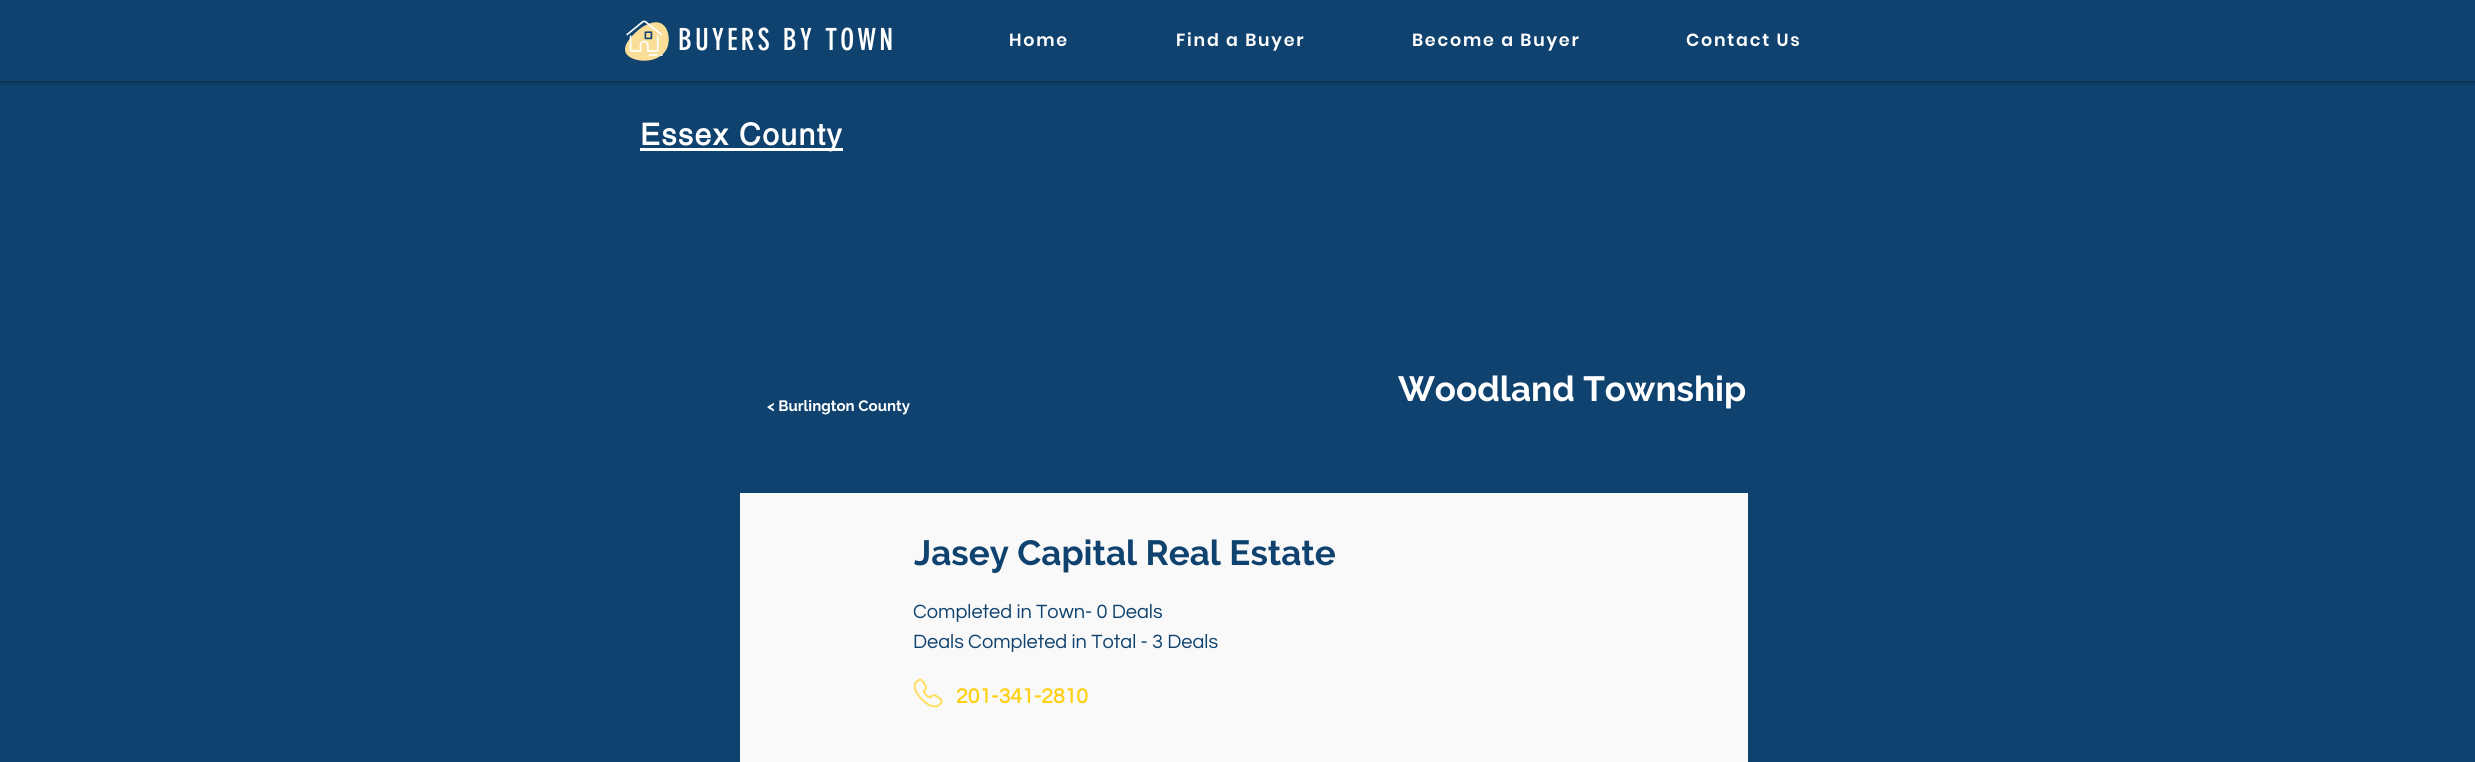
import math
import cairo

surface = cairo.ImageSurface(cairo.FORMAT_RGB24, 2475, 762)
ctx = cairo.Context(surface)
options = cairo.FontOptions()
options.set_hint_metrics(cairo.HINT_METRICS_OFF)
options.set_hint_style(cairo.HINT_STYLE_NONE)
ctx.set_font_options(options)
ctx.set_miter_limit(4)


def spaced_text(x, y, s, letter, word):
    ctx.move_to(x, y)
    for ch in s:
        ctx.show_text(ch)
        ctx.rel_move_to(letter + word * (ch == ' '), 0)


def round_rect(x, y, w, h, r):
    ctx.new_sub_path()
    for i, (u, v) in enumerate([(x + w - r, y + h - r), (x + r, y + h - r), (x + r, y + r), (x + w - r, y + r)]):
        ctx.arc(u, v, r, i * math.pi / 2, (i + 1) * math.pi / 2)
    ctx.close_path()


def shadow(x, y, w, h, r, blur, alpha):
    ctx.push_group_with_content(cairo.CONTENT_ALPHA)
    ctx.set_operator(cairo.OPERATOR_SOURCE)
    for i in range(15, -16, -2):
        e = blur * i / 6
        if min(w, h) + 2 * e > 0:
            ctx.set_source_rgba(0, 0, 0, alpha * math.erfc((i - 1) / 8.5) / 2)
            round_rect(x - e, y - e, w + 2 * e, h + 2 * e, max(0, min(r + e + blur * .6, min(w, h) / 2 + e)))
            ctx.fill()
    ctx.mask(ctx.pop_group())


def picture(path, x, y, w, h):
    ctx.save()
    ctx.set_source_surface(cairo.ImageSurface.create_from_png(path), x, y)
    ctx.rectangle(x, y, w, h)
    ctx.fill()
    ctx.restore()


ctx.set_source_rgb(0.059, 0.259, 0.431)
ctx.paint()
ctx.save()
ctx.rectangle(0, 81, 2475, 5)
ctx.clip()
ctx.set_source_rgb(0, 0, 0)
shadow(0, 0, 2475, 81, 0, 3, 0.5)
ctx.restore()
picture("img1.png", 625, 20, 44, 41)
ctx.select_font_face("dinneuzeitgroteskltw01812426")
ctx.set_font_size(30)
ctx.set_source_rgb(1, 1, 1)
spaced_text(678, 50, "BUYERS BY TOWN", 3, 0)
ctx.select_font_face("Poppins SemiBold")
ctx.set_font_size(17.5)
spaced_text(1009, 46, "Home", 1.75, 0)
spaced_text(1176, 46, "Find a Buyer", 1.75, 0)
spaced_text(1412, 46, "Become a Buyer", 1.75, 0)
spaced_text(1686, 46, "Contact Us", 1.75, 0)
ctx.rectangle(640, 148, 203, 3)
ctx.fill()
ctx.select_font_face("helvetica", cairo.FONT_SLANT_NORMAL, cairo.FONT_WEIGHT_BOLD)
ctx.set_font_size(30)
spaced_text(640, 145, "Essex County", 1.5, 0)
ctx.select_font_face("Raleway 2", cairo.FONT_SLANT_NORMAL, cairo.FONT_WEIGHT_BOLD)
ctx.set_font_size(15)
ctx.move_to(767, 411)
ctx.show_text("< Burlington County")
ctx.select_font_face("Raleway", cairo.FONT_SLANT_NORMAL, cairo.FONT_WEIGHT_BOLD)
ctx.set_font_size(35)
ctx.move_to(1398, 401)
ctx.show_text("Woodland Township")
ctx.set_source_rgb(0.976, 0.976, 0.976)
ctx.rectangle(740, 493, 1008, 269)
ctx.fill()
ctx.set_source_rgb(0.059, 0.259, 0.431)
ctx.move_to(914, 565)
ctx.show_text("Jasey Capital Real Estate")
ctx.select_font_face("Questrial")
ctx.set_font_size(20)
ctx.move_to(913, 618)
ctx.show_text("Completed in Town- 0 Deals")
ctx.move_to(913, 648)
ctx.show_text("Deals Completed in Total - 3 Deals")
picture("img2.png", 913, 678, 30, 30)
ctx.select_font_face("Questrial", cairo.FONT_SLANT_NORMAL, cairo.FONT_WEIGHT_BOLD)
ctx.set_font_size(21.25)
ctx.set_source_rgb(1, 0.812, 0.071)
ctx.move_to(956, 703)
ctx.show_text("201-341-2810")
surface.write_to_png("page.png")
